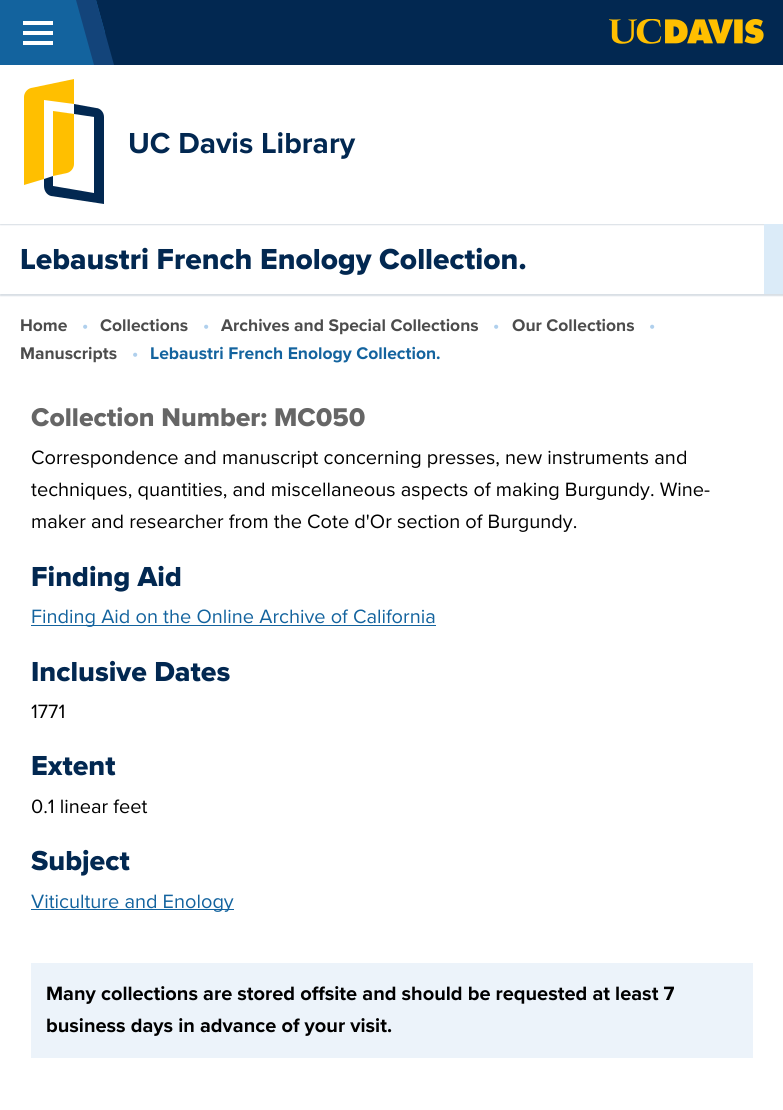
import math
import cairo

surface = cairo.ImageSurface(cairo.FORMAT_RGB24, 783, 1110)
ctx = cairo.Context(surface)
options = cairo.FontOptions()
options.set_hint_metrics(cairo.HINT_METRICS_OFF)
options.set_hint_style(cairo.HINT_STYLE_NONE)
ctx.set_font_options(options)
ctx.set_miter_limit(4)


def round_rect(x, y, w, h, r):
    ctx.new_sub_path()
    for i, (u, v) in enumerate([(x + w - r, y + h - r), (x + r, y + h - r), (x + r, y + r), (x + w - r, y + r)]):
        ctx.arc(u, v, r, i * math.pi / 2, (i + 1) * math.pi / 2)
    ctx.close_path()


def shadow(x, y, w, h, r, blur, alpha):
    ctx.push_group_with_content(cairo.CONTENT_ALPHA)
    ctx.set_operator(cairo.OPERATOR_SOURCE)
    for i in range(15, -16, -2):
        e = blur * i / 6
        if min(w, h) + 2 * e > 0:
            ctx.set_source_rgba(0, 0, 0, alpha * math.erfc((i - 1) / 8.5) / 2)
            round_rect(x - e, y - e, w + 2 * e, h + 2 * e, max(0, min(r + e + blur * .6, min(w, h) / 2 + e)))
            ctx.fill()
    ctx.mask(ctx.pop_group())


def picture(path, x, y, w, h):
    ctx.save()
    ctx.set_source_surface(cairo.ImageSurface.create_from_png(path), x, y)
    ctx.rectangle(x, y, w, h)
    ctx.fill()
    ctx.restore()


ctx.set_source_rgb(1, 1, 1)
ctx.paint()
ctx.set_source_rgb(0.008, 0.157, 0.318)
shadow(0, 70, 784, 155, 0, 0.5, 0.15)
ctx.set_source_rgb(1, 1, 1)
ctx.rectangle(0, 69, 783, 155)
ctx.fill()
ctx.set_source_rgb(0.008, 0.157, 0.318)
ctx.rectangle(105, 0, 678, 65)
ctx.fill()
ctx.set_source_rgb(0.075, 0.388, 0.62)
ctx.rectangle(0, 0, 105, 65)
ctx.fill()
ctx.set_source_rgb(1, 1, 1)
ctx.rectangle(23, 31, 30, 4)
ctx.fill()
ctx.rectangle(23, 21, 30, 4)
ctx.fill()
ctx.rectangle(23, 41, 30, 4)
ctx.fill()
ctx.set_source_rgb(0.008, 0.157, 0.318)
ctx.new_path()
ctx.move_to(96, 0)
ctx.line_to(116, 0)
ctx.line_to(134, 65)
ctx.line_to(114, 65)
ctx.close_path()
ctx.fill()
ctx.set_source_rgb(0.078, 0.267, 0.478)
ctx.new_path()
ctx.move_to(76, 0)
ctx.line_to(96, 0)
ctx.line_to(114, 65)
ctx.line_to(94, 65)
ctx.close_path()
ctx.fill()
picture("img1.png", 609, 19, 155, 25)
ctx.set_source_rgb(1, 0.749, 0)
ctx.new_path()
ctx.move_to(53, 176)
ctx.line_to(67, 173)
ctx.curve_to(71, 172, 74, 168, 74, 164)
ctx.line_to(74, 114)
ctx.line_to(53, 111)
ctx.close_path()
ctx.fill()
ctx.new_path()
ctx.move_to(74, 104)
ctx.line_to(74, 79)
ctx.line_to(31, 88)
ctx.curve_to(27, 89, 24, 93, 24, 97)
ctx.line_to(24, 185)
ctx.line_to(44, 179)
ctx.line_to(44, 100)
ctx.close_path()
ctx.fill()
ctx.set_source_rgb(0.008, 0.157, 0.318)
ctx.new_path()
ctx.move_to(96, 108)
ctx.line_to(74, 104)
ctx.line_to(74, 114)
ctx.line_to(94, 117)
ctx.line_to(94, 193)
ctx.line_to(53, 186)
ctx.line_to(53, 176)
ctx.line_to(44, 179)
ctx.line_to(44, 186)
ctx.curve_to(44, 191, 47, 195, 51, 196)
ctx.line_to(104, 204)
ctx.line_to(104, 117)
ctx.curve_to(104, 112, 100, 108, 96, 108)
ctx.close_path()
ctx.fill()
ctx.select_font_face("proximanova", cairo.FONT_SLANT_NORMAL, cairo.FONT_WEIGHT_BOLD)
ctx.set_font_size(30)
ctx.move_to(128, 153)
ctx.show_text("UC Davis Library")
ctx.save()
ctx.set_fill_rule(cairo.FILL_RULE_EVEN_ODD)
ctx.new_path()
ctx.move_to(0, 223)
ctx.line_to(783, 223)
ctx.line_to(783, 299)
ctx.line_to(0, 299)
ctx.close_path()
ctx.move_to(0, 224)
ctx.line_to(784, 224)
ctx.line_to(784, 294)
ctx.line_to(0, 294)
ctx.close_path()
ctx.clip()
ctx.set_source_rgb(0.008, 0.157, 0.318)
shadow(0, 226, 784, 70, 0, 0.5, 0.15)
ctx.restore()
ctx.select_font_face("Proxima Nova ExtraBold")
ctx.move_to(20, 269)
ctx.show_text("Lebaustri French Enology Collection.")
ctx.set_source_rgb(0.859, 0.918, 0.969)
ctx.rectangle(764, 224, 19, 70)
ctx.fill()
ctx.select_font_face("proximanova", cairo.FONT_SLANT_NORMAL, cairo.FONT_WEIGHT_BOLD)
ctx.set_font_size(17.5)
ctx.set_source_rgb(0.298, 0.298, 0.298)
ctx.move_to(20, 331)
ctx.show_text("Home")
ctx.set_source_rgb(0.69, 0.816, 0.929)
ctx.move_to(82, 331)
ctx.show_text("•")
ctx.set_source_rgb(0.298, 0.298, 0.298)
ctx.move_to(100, 331)
ctx.show_text("Collections")
ctx.set_source_rgb(0.69, 0.816, 0.929)
ctx.move_to(203, 331)
ctx.show_text("•")
ctx.set_source_rgb(0.298, 0.298, 0.298)
ctx.move_to(221, 331)
ctx.show_text("Archives and Special Collections")
ctx.set_source_rgb(0.69, 0.816, 0.929)
ctx.move_to(493, 331)
ctx.show_text("•")
ctx.set_source_rgb(0.298, 0.298, 0.298)
ctx.move_to(512, 331)
ctx.show_text("Our Collections")
ctx.set_source_rgb(0.69, 0.816, 0.929)
ctx.move_to(649, 331)
ctx.show_text("•")
ctx.set_source_rgb(0.298, 0.298, 0.298)
ctx.move_to(20, 359)
ctx.show_text("Manuscripts")
ctx.set_source_rgb(0.69, 0.816, 0.929)
ctx.move_to(132, 359)
ctx.show_text("•")
ctx.set_source_rgb(0.075, 0.388, 0.62)
ctx.move_to(150, 359)
ctx.show_text("Lebaustri French Enology Collection.")
ctx.select_font_face("Proxima Nova ExtraBold")
ctx.set_font_size(26.6)
ctx.set_source_rgb(0.4, 0.4, 0.4)
ctx.move_to(31, 426)
ctx.show_text("Collection Number: MC050")
ctx.select_font_face("proximanova")
ctx.set_font_size(20)
ctx.set_source_rgb(0, 0, 0)
ctx.move_to(31, 464)
ctx.show_text("Correspondence and manuscript concerning presses, new instruments and")
ctx.move_to(31, 496)
ctx.show_text("techniques, quantities, and miscellaneous aspects of making Burgundy. Wine-")
ctx.move_to(31, 528)
ctx.show_text("maker and researcher from the Cote d'Or section of Burgundy.")
ctx.select_font_face("Proxima Nova ExtraBold")
ctx.set_font_size(28.5)
ctx.set_source_rgb(0.008, 0.157, 0.318)
ctx.move_to(31, 586)
ctx.show_text("Finding Aid")
ctx.set_source_rgb(0.075, 0.388, 0.62)
ctx.rectangle(31, 625, 405, 1)
ctx.fill()
ctx.select_font_face("proximanova")
ctx.set_font_size(20)
ctx.move_to(31, 623)
ctx.show_text("Finding Aid on the Online Archive of California")
ctx.select_font_face("Proxima Nova ExtraBold")
ctx.set_font_size(28.5)
ctx.set_source_rgb(0.008, 0.157, 0.318)
ctx.move_to(31, 681)
ctx.show_text("Inclusive Dates")
ctx.select_font_face("proximanova")
ctx.set_font_size(20)
ctx.set_source_rgb(0, 0, 0)
ctx.move_to(31, 718)
ctx.show_text("1771")
ctx.select_font_face("Proxima Nova ExtraBold")
ctx.set_font_size(28.5)
ctx.set_source_rgb(0.008, 0.157, 0.318)
ctx.move_to(31, 775)
ctx.show_text("Extent")
ctx.select_font_face("proximanova")
ctx.set_font_size(20)
ctx.set_source_rgb(0, 0, 0)
ctx.move_to(31, 813)
ctx.show_text("0.1 linear feet")
ctx.select_font_face("Proxima Nova ExtraBold")
ctx.set_font_size(28.5)
ctx.set_source_rgb(0.008, 0.157, 0.318)
ctx.move_to(31, 870)
ctx.show_text("Subject")
ctx.set_source_rgb(0.075, 0.388, 0.62)
ctx.rectangle(31, 909, 203, 1)
ctx.fill()
ctx.select_font_face("proximanova")
ctx.set_font_size(20)
ctx.move_to(31, 908)
ctx.show_text("Viticulture and Enology")
ctx.set_source_rgb(0.922, 0.953, 0.98)
ctx.rectangle(31, 963, 722, 95)
ctx.fill()
ctx.select_font_face("proximanova", cairo.FONT_SLANT_NORMAL, cairo.FONT_WEIGHT_BOLD)
ctx.set_source_rgb(0, 0, 0)
ctx.move_to(46, 1000)
ctx.show_text("Many collections are stored offsite and should be requested at least 7")
ctx.move_to(46, 1032)
ctx.show_text("business days in advance of your visit.")
surface.write_to_png("page.png")
